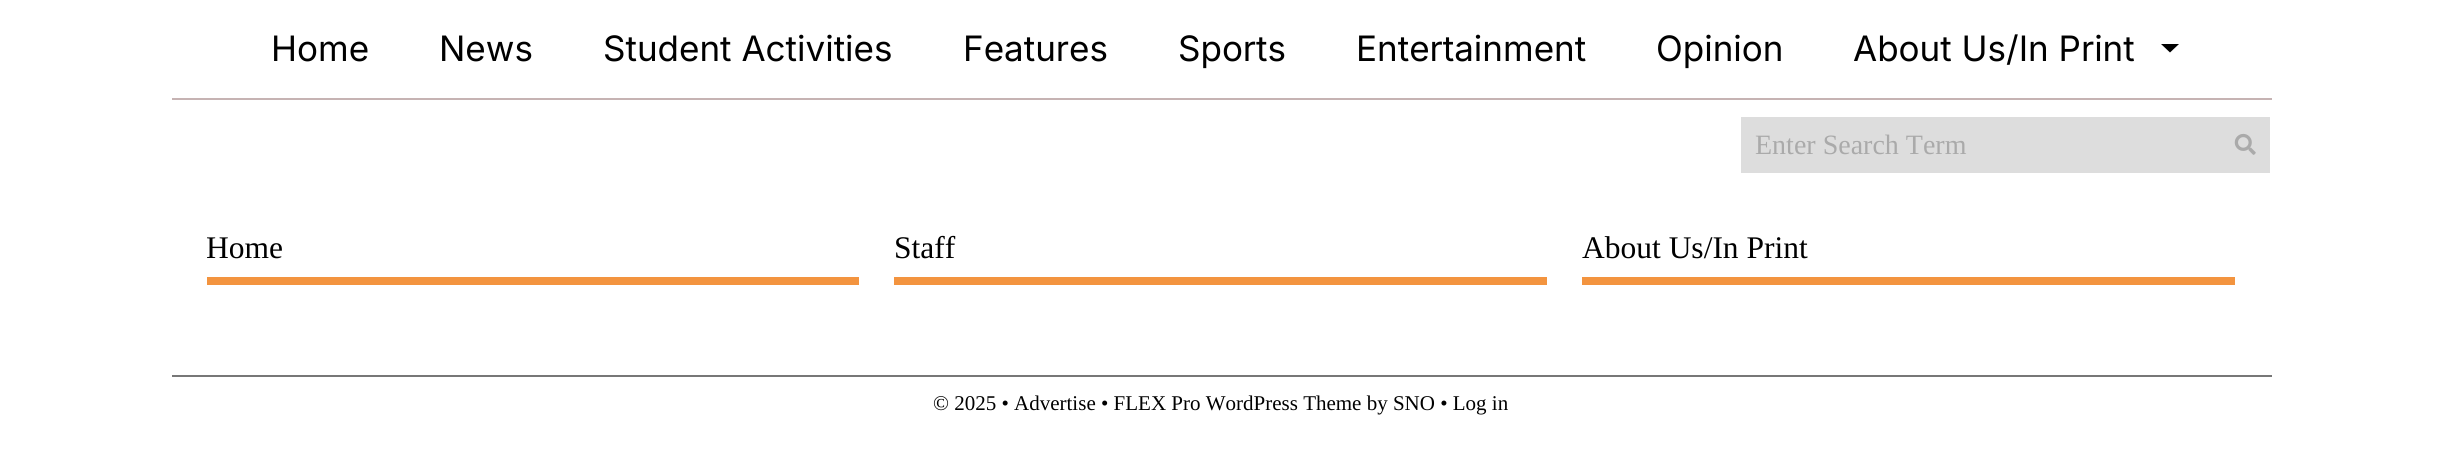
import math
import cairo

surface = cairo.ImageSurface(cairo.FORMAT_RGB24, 2441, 466)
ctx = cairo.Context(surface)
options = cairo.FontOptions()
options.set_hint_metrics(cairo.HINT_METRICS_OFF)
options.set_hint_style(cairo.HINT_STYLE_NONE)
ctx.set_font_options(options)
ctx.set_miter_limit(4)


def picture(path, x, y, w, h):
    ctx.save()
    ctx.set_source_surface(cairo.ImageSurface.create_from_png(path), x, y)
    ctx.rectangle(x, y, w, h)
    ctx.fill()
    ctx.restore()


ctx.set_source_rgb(1, 1, 1)
ctx.paint()
ctx.set_source_rgb(0.776, 0.702, 0.702)
ctx.rectangle(172, 98, 2100, 2)
ctx.fill()
ctx.select_font_face("Inter")
ctx.set_font_size(35)
ctx.set_source_rgb(0, 0, 0)
ctx.move_to(271, 61)
ctx.show_text("Home")
ctx.move_to(439, 61)
ctx.show_text("News")
ctx.move_to(603, 61)
ctx.show_text("Student Activities")
ctx.move_to(963, 61)
ctx.show_text("Features")
ctx.move_to(1178, 61)
ctx.show_text("Sports")
ctx.move_to(1356, 61)
ctx.show_text("Entertainment")
ctx.move_to(1656, 61)
ctx.show_text("Opinion")
ctx.move_to(1853, 61)
ctx.show_text("About Us/In Print")
ctx.new_path()
ctx.move_to(2161, 44)
ctx.line_to(2179, 44)
ctx.line_to(2170, 52.5)
ctx.close_path()
ctx.fill()
ctx.set_source_rgb(0.867, 0.867, 0.867)
ctx.rectangle(1741, 117, 529, 56)
ctx.fill()
ctx.select_font_face("Liberation Serif")
ctx.set_font_size(28)
ctx.set_source_rgb(0.667, 0.667, 0.667)
ctx.move_to(1755, 154)
ctx.show_text("Enter Search Term")
picture("img1.png", 2234, 133, 22, 22)
ctx.set_source_rgb(0.953, 0.58, 0.247)
ctx.rectangle(207, 277, 652, 8)
ctx.fill()
ctx.save()
ctx.rectangle(207, 226, 652, 68)
ctx.clip()
ctx.set_font_size(31.5)
ctx.set_source_rgb(0, 0, 0)
ctx.move_to(206, 258)
ctx.show_text("Home")
ctx.restore()
ctx.rectangle(894, 277, 653, 8)
ctx.fill()
ctx.set_font_size(31.5)
ctx.set_source_rgb(0, 0, 0)
ctx.move_to(894, 258)
ctx.show_text("Staff")
ctx.set_source_rgb(0.953, 0.58, 0.247)
ctx.rectangle(1582, 277, 653, 8)
ctx.fill()
ctx.set_source_rgb(0, 0, 0)
ctx.move_to(1582, 258)
ctx.show_text("About Us/In Print")
ctx.set_source_rgb(0.467, 0.467, 0.467)
ctx.rectangle(172, 375, 2100, 2)
ctx.fill()
ctx.set_font_size(21)
ctx.set_source_rgb(0, 0, 0)
ctx.move_to(933, 410)
ctx.show_text("© 2025 • Advertise • FLEX Pro WordPress Theme by SNO • Log in")
surface.write_to_png("page.png")
